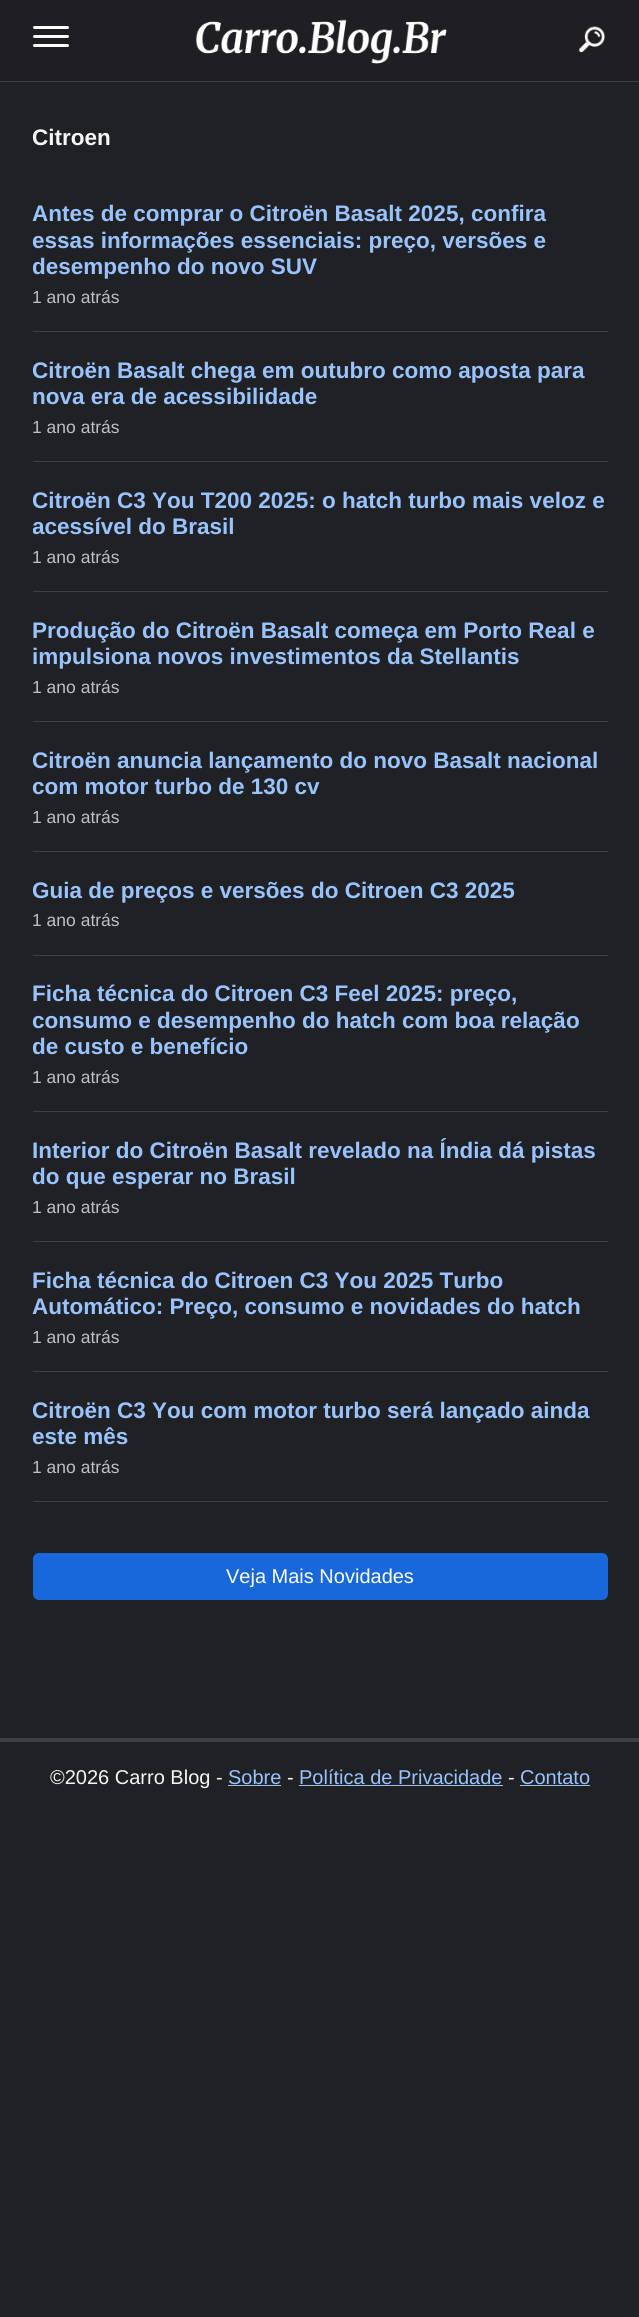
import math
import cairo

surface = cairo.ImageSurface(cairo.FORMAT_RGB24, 639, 2317)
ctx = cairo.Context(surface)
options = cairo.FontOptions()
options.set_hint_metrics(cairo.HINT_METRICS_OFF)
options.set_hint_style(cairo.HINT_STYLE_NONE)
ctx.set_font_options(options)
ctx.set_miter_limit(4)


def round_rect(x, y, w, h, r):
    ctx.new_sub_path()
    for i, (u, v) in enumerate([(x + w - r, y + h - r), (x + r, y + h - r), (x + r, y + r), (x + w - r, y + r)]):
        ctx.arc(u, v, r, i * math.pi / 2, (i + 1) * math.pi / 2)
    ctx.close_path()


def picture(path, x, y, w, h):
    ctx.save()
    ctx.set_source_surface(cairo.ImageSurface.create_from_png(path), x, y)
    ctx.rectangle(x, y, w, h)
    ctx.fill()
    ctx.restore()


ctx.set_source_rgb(0.125, 0.129, 0.141)
ctx.paint()
ctx.set_source_rgb(0.118, 0.118, 0.137)
ctx.rectangle(0, 0, 639, 83)
ctx.fill()
ctx.set_source_rgb(0.235, 0.251, 0.263)
ctx.rectangle(0, 81, 639, 1)
ctx.fill()
ctx.set_source_rgb(1, 1, 1)
round_rect(33, 26, 36, 3, 1.5)
ctx.fill()
round_rect(33, 35, 36, 3, 1.5)
ctx.fill()
round_rect(33, 44, 36, 3, 1.5)
ctx.fill()
picture("img1.png", 195, 19, 252, 45)
picture("img2.png", 578, 26, 27, 27)
ctx.select_font_face("Liberation Sans", cairo.FONT_SLANT_NORMAL, cairo.FONT_WEIGHT_BOLD)
ctx.set_font_size(22.5)
ctx.set_source_rgb(0.961, 0.961, 0.961)
ctx.move_to(32, 145)
ctx.show_text("Citroen")
ctx.set_source_rgb(0.235, 0.251, 0.263)
ctx.rectangle(33, 331, 575, 1)
ctx.fill()
ctx.set_source_rgb(0.6, 0.765, 1)
ctx.move_to(32, 221)
ctx.show_text("Antes de comprar o Citroën Basalt 2025, confira")
ctx.move_to(32, 248)
ctx.show_text("essas informações essenciais: preço, versões e")
ctx.move_to(32, 274)
ctx.show_text("desempenho do novo SUV")
ctx.select_font_face("Liberation Sans")
ctx.set_font_size(17.5)
ctx.set_source_rgb(0.741, 0.757, 0.769)
ctx.move_to(32, 303)
ctx.show_text("1 ano atrás")
ctx.set_source_rgb(0.235, 0.251, 0.263)
ctx.rectangle(33, 461, 575, 1)
ctx.fill()
ctx.select_font_face("Liberation Sans", cairo.FONT_SLANT_NORMAL, cairo.FONT_WEIGHT_BOLD)
ctx.set_font_size(22.5)
ctx.set_source_rgb(0.6, 0.765, 1)
ctx.move_to(32, 378)
ctx.show_text("Citroën Basalt chega em outubro como aposta para")
ctx.move_to(32, 404)
ctx.show_text("nova era de acessibilidade")
ctx.select_font_face("Liberation Sans")
ctx.set_font_size(17.5)
ctx.set_source_rgb(0.741, 0.757, 0.769)
ctx.move_to(32, 433)
ctx.show_text("1 ano atrás")
ctx.set_source_rgb(0.235, 0.251, 0.263)
ctx.rectangle(33, 591, 575, 1)
ctx.fill()
ctx.select_font_face("Liberation Sans", cairo.FONT_SLANT_NORMAL, cairo.FONT_WEIGHT_BOLD)
ctx.set_font_size(22.5)
ctx.set_source_rgb(0.6, 0.765, 1)
ctx.move_to(32, 508)
ctx.show_text("Citroën C3 You T200 2025: o hatch turbo mais veloz e")
ctx.save()
ctx.rectangle(33, 488, 575, 103)
ctx.clip()
ctx.move_to(32, 534)
ctx.show_text("acessível do Brasil")
ctx.restore()
ctx.select_font_face("Liberation Sans")
ctx.set_font_size(17.5)
ctx.set_source_rgb(0.741, 0.757, 0.769)
ctx.move_to(32, 563)
ctx.show_text("1 ano atrás")
ctx.set_source_rgb(0.235, 0.251, 0.263)
ctx.rectangle(33, 721, 575, 1)
ctx.fill()
ctx.select_font_face("Liberation Sans", cairo.FONT_SLANT_NORMAL, cairo.FONT_WEIGHT_BOLD)
ctx.set_font_size(22.5)
ctx.set_source_rgb(0.6, 0.765, 1)
ctx.move_to(32, 638)
ctx.show_text("Produção do Citroën Basalt começa em Porto Real e")
ctx.move_to(32, 664)
ctx.show_text("impulsiona novos investimentos da Stellantis")
ctx.select_font_face("Liberation Sans")
ctx.set_font_size(17.5)
ctx.set_source_rgb(0.741, 0.757, 0.769)
ctx.move_to(32, 693)
ctx.show_text("1 ano atrás")
ctx.set_source_rgb(0.235, 0.251, 0.263)
ctx.rectangle(33, 851, 575, 1)
ctx.fill()
ctx.select_font_face("Liberation Sans", cairo.FONT_SLANT_NORMAL, cairo.FONT_WEIGHT_BOLD)
ctx.set_font_size(22.5)
ctx.set_source_rgb(0.6, 0.765, 1)
ctx.move_to(32, 768)
ctx.show_text("Citroën anuncia lançamento do novo Basalt nacional")
ctx.move_to(32, 794)
ctx.show_text("com motor turbo de 130 cv")
ctx.select_font_face("Liberation Sans")
ctx.set_font_size(17.5)
ctx.set_source_rgb(0.741, 0.757, 0.769)
ctx.move_to(32, 823)
ctx.show_text("1 ano atrás")
ctx.set_source_rgb(0.235, 0.251, 0.263)
ctx.rectangle(33, 955, 575, 1)
ctx.fill()
ctx.select_font_face("Liberation Sans", cairo.FONT_SLANT_NORMAL, cairo.FONT_WEIGHT_BOLD)
ctx.set_font_size(22.5)
ctx.set_source_rgb(0.6, 0.765, 1)
ctx.move_to(32, 898)
ctx.show_text("Guia de preços e versões do Citroen C3 2025")
ctx.select_font_face("Liberation Sans")
ctx.set_font_size(17.5)
ctx.set_source_rgb(0.741, 0.757, 0.769)
ctx.move_to(32, 926)
ctx.show_text("1 ano atrás")
ctx.set_source_rgb(0.235, 0.251, 0.263)
ctx.rectangle(33, 1111, 575, 1)
ctx.fill()
ctx.select_font_face("Liberation Sans", cairo.FONT_SLANT_NORMAL, cairo.FONT_WEIGHT_BOLD)
ctx.set_font_size(22.5)
ctx.set_source_rgb(0.6, 0.765, 1)
ctx.move_to(32, 1001)
ctx.show_text("Ficha técnica do Citroen C3 Feel 2025: preço,")
ctx.move_to(32, 1028)
ctx.show_text("consumo e desempenho do hatch com boa relação")
ctx.move_to(32, 1054)
ctx.show_text("de custo e benefício")
ctx.select_font_face("Liberation Sans")
ctx.set_font_size(17.5)
ctx.set_source_rgb(0.741, 0.757, 0.769)
ctx.move_to(32, 1083)
ctx.show_text("1 ano atrás")
ctx.set_source_rgb(0.235, 0.251, 0.263)
ctx.rectangle(33, 1241, 575, 1)
ctx.fill()
ctx.select_font_face("Liberation Sans", cairo.FONT_SLANT_NORMAL, cairo.FONT_WEIGHT_BOLD)
ctx.set_font_size(22.5)
ctx.set_source_rgb(0.6, 0.765, 1)
ctx.move_to(32, 1158)
ctx.show_text("Interior do Citroën Basalt revelado na Índia dá pistas")
ctx.move_to(32, 1184)
ctx.show_text("do que esperar no Brasil")
ctx.select_font_face("Liberation Sans")
ctx.set_font_size(17.5)
ctx.set_source_rgb(0.741, 0.757, 0.769)
ctx.move_to(32, 1213)
ctx.show_text("1 ano atrás")
ctx.set_source_rgb(0.235, 0.251, 0.263)
ctx.rectangle(33, 1371, 575, 1)
ctx.fill()
ctx.select_font_face("Liberation Sans", cairo.FONT_SLANT_NORMAL, cairo.FONT_WEIGHT_BOLD)
ctx.set_font_size(22.5)
ctx.set_source_rgb(0.6, 0.765, 1)
ctx.move_to(32, 1288)
ctx.show_text("Ficha técnica do Citroen C3 You 2025 Turbo")
ctx.move_to(32, 1314)
ctx.show_text("Automático: Preço, consumo e novidades do hatch")
ctx.select_font_face("Liberation Sans")
ctx.set_font_size(17.5)
ctx.set_source_rgb(0.741, 0.757, 0.769)
ctx.move_to(32, 1343)
ctx.show_text("1 ano atrás")
ctx.set_source_rgb(0.235, 0.251, 0.263)
ctx.rectangle(33, 1501, 575, 1)
ctx.fill()
ctx.select_font_face("Liberation Sans", cairo.FONT_SLANT_NORMAL, cairo.FONT_WEIGHT_BOLD)
ctx.set_font_size(22.5)
ctx.set_source_rgb(0.6, 0.765, 1)
ctx.move_to(32, 1418)
ctx.show_text("Citroën C3 You com motor turbo será lançado ainda")
ctx.move_to(32, 1444)
ctx.show_text("este mês")
ctx.select_font_face("Liberation Sans")
ctx.set_font_size(17.5)
ctx.set_source_rgb(0.741, 0.757, 0.769)
ctx.move_to(32, 1473)
ctx.show_text("1 ano atrás")
ctx.set_source_rgb(0.094, 0.408, 0.863)
round_rect(33, 1553, 575, 47, 6)
ctx.fill()
ctx.set_font_size(20)
ctx.set_source_rgb(1, 1, 1)
ctx.move_to(226, 1583)
ctx.show_text("Veja Mais Novidades")
ctx.set_source_rgb(0.235, 0.251, 0.263)
ctx.rectangle(0, 1738, 639, 4)
ctx.fill()
ctx.set_source_rgb(0.961, 0.961, 0.961)
ctx.move_to(50, 1784)
ctx.show_text("©2026 Carro Blog -")
ctx.set_source_rgb(0.6, 0.765, 1)
ctx.move_to(228, 1784)
ctx.show_text("Sobre")
ctx.rectangle(228, 1785, 53, 1)
ctx.fill()
ctx.set_source_rgb(0.961, 0.961, 0.961)
ctx.move_to(287, 1784)
ctx.show_text("-")
ctx.set_source_rgb(0.6, 0.765, 1)
ctx.move_to(299, 1784)
ctx.show_text("Política de Privacidade")
ctx.rectangle(299, 1785, 204, 1)
ctx.fill()
ctx.set_source_rgb(0.961, 0.961, 0.961)
ctx.move_to(508, 1784)
ctx.show_text("-")
ctx.set_source_rgb(0.6, 0.765, 1)
ctx.move_to(520, 1784)
ctx.show_text("Contato")
ctx.rectangle(520, 1785, 70, 1)
ctx.fill()
surface.write_to_png("page.png")
